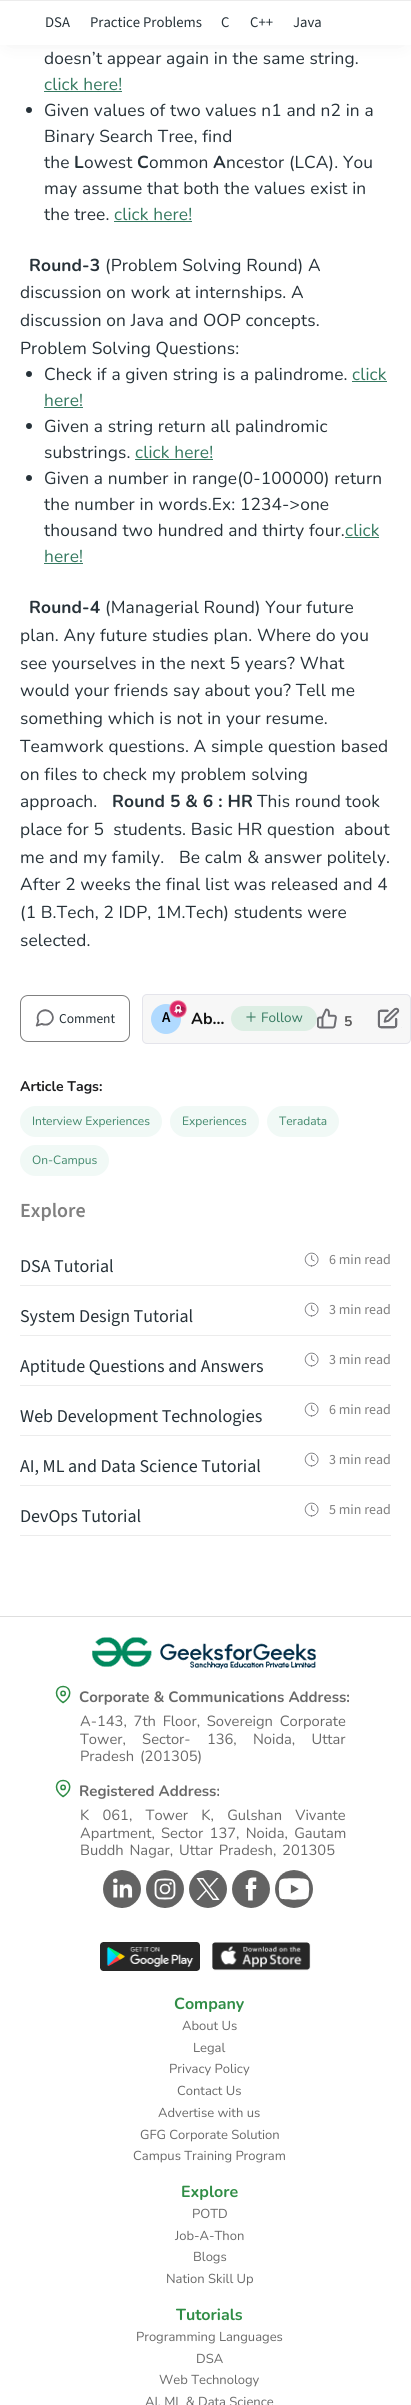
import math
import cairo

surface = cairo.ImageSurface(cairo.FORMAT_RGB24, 411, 2405)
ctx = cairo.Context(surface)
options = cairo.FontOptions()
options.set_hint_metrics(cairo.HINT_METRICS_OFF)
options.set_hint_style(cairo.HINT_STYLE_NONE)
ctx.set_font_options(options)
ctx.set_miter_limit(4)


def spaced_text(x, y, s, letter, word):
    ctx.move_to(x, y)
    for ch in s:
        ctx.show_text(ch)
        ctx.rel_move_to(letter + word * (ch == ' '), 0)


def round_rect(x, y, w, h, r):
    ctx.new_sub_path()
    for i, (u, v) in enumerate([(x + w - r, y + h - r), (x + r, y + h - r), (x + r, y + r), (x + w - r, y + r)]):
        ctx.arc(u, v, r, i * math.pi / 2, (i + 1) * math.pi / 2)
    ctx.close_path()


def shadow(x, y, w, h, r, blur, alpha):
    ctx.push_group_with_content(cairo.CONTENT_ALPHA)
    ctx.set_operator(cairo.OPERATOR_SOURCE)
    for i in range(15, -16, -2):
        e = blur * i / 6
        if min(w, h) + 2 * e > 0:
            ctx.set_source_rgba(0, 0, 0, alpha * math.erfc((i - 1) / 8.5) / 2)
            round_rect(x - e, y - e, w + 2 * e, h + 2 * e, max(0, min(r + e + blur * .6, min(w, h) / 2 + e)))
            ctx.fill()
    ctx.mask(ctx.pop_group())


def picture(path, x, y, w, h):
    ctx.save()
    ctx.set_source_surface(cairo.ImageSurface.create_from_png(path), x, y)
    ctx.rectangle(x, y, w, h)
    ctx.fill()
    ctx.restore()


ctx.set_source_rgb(1, 1, 1)
ctx.paint()
ctx.set_source_rgb(0.067, 0.067, 0.067)
shadow(10, 12, 391, 25, 0, 10, 0.17)
ctx.set_source_rgb(1, 1, 1)
ctx.rectangle(0, 1, 411, 44)
ctx.fill()
ctx.set_source_rgb(0.922, 0.922, 0.922)
ctx.rectangle(0, 0, 411, 1)
ctx.fill()
ctx.select_font_face("Source Sans 3")
ctx.set_font_size(14.7)
ctx.set_source_rgb(0.153, 0.196, 0.224)
ctx.move_to(45, 27)
ctx.show_text("DSA")
ctx.move_to(90, 27)
ctx.show_text("Practice Problems")
ctx.move_to(221, 27)
ctx.show_text("C")
ctx.move_to(250, 27)
ctx.show_text("C++")
ctx.move_to(293, 27)
ctx.show_text("Java")
ctx.select_font_face("Nunito")
ctx.set_font_size(17.3)
spaced_text(44, 64, "doesn’t appear again in the same string.", 0.15, 0)
ctx.set_source_rgb(0.208, 0.475, 0.376)
spaced_text(44, 90, "click here!", 0.15, 0)
ctx.rectangle(44, 91, 78, 1)
ctx.fill()
ctx.set_source_rgb(0.153, 0.196, 0.224)
ctx.arc(29, 110, 3, 0, 2 * math.pi)
ctx.fill()
spaced_text(44, 116, "Given values of two values n1 and n2 in a", 0.15, 0)
spaced_text(44, 142, "Binary Search Tree, find", 0.15, 0)
spaced_text(44, 168, "the", 0.15, 0)
ctx.select_font_face("Nunito", cairo.FONT_SLANT_NORMAL, cairo.FONT_WEIGHT_BOLD)
spaced_text(74, 168, "L", 0.15, 0)
ctx.select_font_face("Nunito")
spaced_text(84, 168, "owest", 0.15, 0)
ctx.select_font_face("Nunito", cairo.FONT_SLANT_NORMAL, cairo.FONT_WEIGHT_BOLD)
spaced_text(137, 168, "C", 0.15, 0)
ctx.select_font_face("Nunito")
spaced_text(149, 168, "ommon", 0.15, 0)
ctx.select_font_face("Nunito", cairo.FONT_SLANT_NORMAL, cairo.FONT_WEIGHT_BOLD)
spaced_text(213, 168, "A", 0.15, 0)
ctx.select_font_face("Nunito")
spaced_text(226, 168, "ncestor (LCA). You", 0.15, 0)
spaced_text(44, 194, "may assume that both the values exist in", 0.15, 0)
spaced_text(44, 220, "the tree.", 0.15, 0)
ctx.set_source_rgb(0.208, 0.475, 0.376)
spaced_text(114, 220, "click here!", 0.15, 0)
ctx.rectangle(114, 221, 78, 1)
ctx.fill()
ctx.select_font_face("Nunito", cairo.FONT_SLANT_NORMAL, cairo.FONT_WEIGHT_BOLD)
ctx.set_source_rgb(0.153, 0.196, 0.224)
spaced_text(29, 271, "Round-3", 0.15, 0)
ctx.select_font_face("Nunito")
spaced_text(105, 271, "(Problem Solving Round) A", 0.15, 0)
spaced_text(20, 298, "discussion on work at internships. A", 0.15, 0)
spaced_text(20, 326, "discussion on Java and OOP concepts.", 0.15, 0)
spaced_text(20, 354, "Problem Solving Questions:", 0.15, 0)
ctx.new_path()
ctx.arc(29, 374, 3, 0, 2 * math.pi)
ctx.fill()
spaced_text(44, 380, "Check if a given string is a palindrome.", 0.15, 0)
ctx.set_source_rgb(0.208, 0.475, 0.376)
spaced_text(352, 380, "click", 0.15, 0)
ctx.rectangle(352, 381, 35, 1)
ctx.fill()
spaced_text(44, 406, "here!", 0.15, 0)
ctx.rectangle(44, 407, 39, 1)
ctx.fill()
ctx.set_source_rgb(0.153, 0.196, 0.224)
ctx.arc(29, 426, 3, 0, 2 * math.pi)
ctx.fill()
spaced_text(44, 432, "Given a string return all palindromic", 0.15, 0)
spaced_text(44, 458, "substrings.", 0.15, 0)
ctx.set_source_rgb(0.208, 0.475, 0.376)
spaced_text(135, 458, "click here!", 0.15, 0)
ctx.rectangle(135, 459, 78, 1)
ctx.fill()
ctx.set_source_rgb(0.153, 0.196, 0.224)
ctx.arc(29, 478, 3, 0, 2 * math.pi)
ctx.fill()
spaced_text(44, 484, "Given a number in range(0-100000) return", 0.15, 0)
spaced_text(44, 510, "the number in words.Ex: 1234->one", 0.15, 0)
spaced_text(44, 536, "thousand two hundred and thirty four.", 0.15, 0)
ctx.set_source_rgb(0.208, 0.475, 0.376)
spaced_text(345, 536, "click", 0.15, 0)
ctx.rectangle(345, 537, 34, 1)
ctx.fill()
spaced_text(44, 562, "here!", 0.15, 0)
ctx.rectangle(44, 563, 39, 1)
ctx.fill()
ctx.select_font_face("Nunito", cairo.FONT_SLANT_NORMAL, cairo.FONT_WEIGHT_BOLD)
ctx.set_source_rgb(0.153, 0.196, 0.224)
spaced_text(29, 613, "Round-4", 0.15, 0)
ctx.select_font_face("Nunito")
spaced_text(105, 613, "(Managerial Round) Your future", 0.15, 0)
spaced_text(20, 641, "plan. Any future studies plan. Where do you", 0.15, 0)
spaced_text(20, 669, "see yourselves in the next 5 years? What", 0.15, 0)
spaced_text(20, 696, "would your friends say about you? Tell me", 0.15, 0)
spaced_text(20, 724, "something which is not in your resume.", 0.15, 0)
spaced_text(20, 752, "Teamwork questions. A simple question based", 0.15, 0)
spaced_text(20, 780, "on files to check my problem solving", 0.15, 0)
spaced_text(20, 807, "approach.", 0.15, 0)
ctx.select_font_face("Nunito", cairo.FONT_SLANT_NORMAL, cairo.FONT_WEIGHT_BOLD)
spaced_text(112, 807, "Round 5 & 6 : HR", 0.15, 0)
ctx.select_font_face("Nunito")
spaced_text(257, 807, "This round took", 0.15, 0)
spaced_text(20, 835, "place for 5  students. Basic HR question  about", 0.15, 0)
spaced_text(20, 863, "me and my family.", 0.15, 0)
spaced_text(179, 863, "Be calm & answer politely.", 0.15, 0)
spaced_text(20, 890, "After 2 weeks the final list was released and 4", 0.15, 0)
spaced_text(20, 918, "(1 B.Tech, 2 IDP, 1M.Tech) students were", 0.15, 0)
spaced_text(20, 946, "selected.", 0.15, 0)
round_rect(20.5, 995.5, 109, 46, 7.5)
ctx.set_source_rgb(0.502, 0.502, 0.502)
ctx.set_line_width(1)
ctx.stroke()
picture("img1.png", 35, 1009, 19, 18)
ctx.select_font_face("Source Sans 3")
ctx.set_font_size(13.5)
ctx.set_source_rgb(0.153, 0.196, 0.224)
ctx.move_to(59, 1023)
ctx.show_text("Comment")
ctx.set_source_rgb(0.965, 0.965, 0.965)
round_rect(142.5, 994.5, 268, 49, 4.5)
ctx.fill_preserve()
ctx.set_source_rgb(0.894, 0.894, 0.918)
ctx.stroke()
ctx.set_source_rgb(0.69, 0.855, 1)
ctx.arc(166, 1019, 15, 0, 2 * math.pi)
ctx.fill()
ctx.select_font_face("Source Sans 3 SemiBold")
ctx.set_font_size(15)
ctx.set_source_rgb(0, 0, 0)
spaced_text(162, 1022, "A", -1, 0)
picture("img2.png", 169, 1000, 18, 18)
ctx.select_font_face("Nunito", cairo.FONT_SLANT_NORMAL, cairo.FONT_WEIGHT_BOLD)
ctx.set_font_size(16)
ctx.set_source_rgb(0.071, 0.071, 0.071)
ctx.move_to(191, 1024)
ctx.show_text("Ab…")
ctx.set_source_rgb(0.867, 0.933, 0.894)
round_rect(231, 1006, 86, 25, 12.5)
ctx.fill()
picture("img3.png", 246, 1012, 10, 10)
ctx.select_font_face("Nunito")
ctx.set_font_size(13.5)
ctx.set_source_rgb(0.208, 0.475, 0.376)
ctx.move_to(261, 1022)
ctx.show_text("Follow")
picture("img4.png", 317, 1008, 20, 21)
ctx.select_font_face("Nunito", cairo.FONT_SLANT_NORMAL, cairo.FONT_WEIGHT_BOLD)
ctx.set_font_size(14)
ctx.set_source_rgb(0.357, 0.353, 0.353)
ctx.move_to(344, 1026)
ctx.show_text("5")
picture("img5.png", 377, 1007, 25, 22)
ctx.set_source_rgb(0.114, 0.114, 0.122)
ctx.move_to(20, 1091)
ctx.show_text("Article Tags:")
ctx.set_source_rgb(0.945, 0.973, 0.961)
round_rect(20, 1106, 142, 31, 15.5)
ctx.fill()
ctx.select_font_face("Nunito")
ctx.set_font_size(12)
ctx.set_source_rgb(0.255, 0.533, 0.424)
ctx.move_to(32, 1125)
ctx.show_text("Interview Experiences")
ctx.set_source_rgb(0.945, 0.973, 0.961)
round_rect(170, 1106, 89, 31, 15.5)
ctx.fill()
ctx.set_source_rgb(0.255, 0.533, 0.424)
ctx.move_to(182, 1125)
ctx.show_text("Experiences")
ctx.set_source_rgb(0.945, 0.973, 0.961)
round_rect(267, 1106, 72, 31, 15.5)
ctx.fill()
ctx.set_source_rgb(0.255, 0.533, 0.424)
ctx.move_to(279, 1125)
ctx.show_text("Teradata")
ctx.set_source_rgb(0.945, 0.973, 0.961)
round_rect(20, 1145, 89, 31, 15.5)
ctx.fill()
ctx.set_source_rgb(0.255, 0.533, 0.424)
ctx.move_to(32, 1164)
ctx.show_text("On-Campus")
ctx.select_font_face("Source Sans 3 SemiBold")
ctx.set_font_size(20)
ctx.set_source_rgb(0.502, 0.502, 0.502)
ctx.move_to(20, 1217)
ctx.show_text("Explore")
ctx.set_source_rgb(0.925, 0.925, 0.925)
ctx.rectangle(20, 1285, 371, 1)
ctx.fill()
ctx.select_font_face("Source Sans 3")
ctx.set_font_size(18)
ctx.set_source_rgb(0.153, 0.196, 0.224)
ctx.move_to(20, 1272)
ctx.show_text("DSA Tutorial")
picture("img6.png", 304, 1252, 15, 15)
ctx.set_font_size(14)
ctx.set_source_rgb(0.502, 0.502, 0.502)
ctx.move_to(329, 1264)
ctx.show_text("6 min read")
ctx.set_source_rgb(0.925, 0.925, 0.925)
ctx.rectangle(20, 1335, 371, 1)
ctx.fill()
ctx.set_font_size(18)
ctx.set_source_rgb(0.153, 0.196, 0.224)
ctx.move_to(20, 1322)
ctx.show_text("System Design Tutorial")
picture("img6.png", 304, 1302, 15, 15)
ctx.set_font_size(14)
ctx.set_source_rgb(0.502, 0.502, 0.502)
ctx.move_to(329, 1314)
ctx.show_text("3 min read")
ctx.set_source_rgb(0.925, 0.925, 0.925)
ctx.rectangle(20, 1385, 371, 1)
ctx.fill()
ctx.set_font_size(18)
ctx.set_source_rgb(0.153, 0.196, 0.224)
ctx.move_to(20, 1372)
ctx.show_text("Aptitude Questions and Answers")
picture("img6.png", 304, 1352, 15, 15)
ctx.set_font_size(14)
ctx.set_source_rgb(0.502, 0.502, 0.502)
ctx.move_to(329, 1364)
ctx.show_text("3 min read")
ctx.set_source_rgb(0.925, 0.925, 0.925)
ctx.rectangle(20, 1435, 371, 1)
ctx.fill()
ctx.set_font_size(18)
ctx.set_source_rgb(0.153, 0.196, 0.224)
ctx.move_to(20, 1422)
ctx.show_text("Web Development Technologies")
picture("img6.png", 304, 1402, 15, 15)
ctx.set_font_size(14)
ctx.set_source_rgb(0.502, 0.502, 0.502)
ctx.move_to(329, 1414)
ctx.show_text("6 min read")
ctx.set_source_rgb(0.925, 0.925, 0.925)
ctx.rectangle(20, 1485, 371, 1)
ctx.fill()
ctx.set_font_size(18)
ctx.set_source_rgb(0.153, 0.196, 0.224)
ctx.move_to(20, 1472)
ctx.show_text("AI, ML and Data Science Tutorial")
picture("img6.png", 304, 1452, 15, 15)
ctx.set_font_size(14)
ctx.set_source_rgb(0.502, 0.502, 0.502)
ctx.move_to(329, 1464)
ctx.show_text("3 min read")
ctx.set_source_rgb(0.925, 0.925, 0.925)
ctx.rectangle(20, 1535, 371, 1)
ctx.fill()
ctx.set_font_size(18)
ctx.set_source_rgb(0.153, 0.196, 0.224)
ctx.move_to(20, 1522)
ctx.show_text("DevOps Tutorial")
picture("img6.png", 304, 1502, 15, 15)
ctx.set_font_size(14)
ctx.set_source_rgb(0.502, 0.502, 0.502)
ctx.move_to(329, 1514)
ctx.show_text("5 min read")
ctx.set_source_rgb(0.871, 0.871, 0.871)
ctx.rectangle(0, 1616, 411, 1)
ctx.fill()
picture("img7.png", 92, 1637, 224, 32)
picture("img8.png", 55, 1685, 16, 19)
ctx.select_font_face("Nunito", cairo.FONT_SLANT_NORMAL, cairo.FONT_WEIGHT_BOLD)
ctx.set_font_size(15)
ctx.set_source_rgb(0.412, 0.412, 0.412)
ctx.move_to(79, 1702)
ctx.show_text("Corporate & Communications Address:")
ctx.select_font_face("Nunito")
ctx.set_font_size(14.7)
spaced_text(80, 1726, "A-143, 7th Floor, Sovereign Corporate", 0, 3)
spaced_text(80, 1744, "Tower, Sector- 136, Noida, Uttar", 0, 12.5)
spaced_text(80, 1761, "Pradesh (201305)", 0, 2)
picture("img8.png", 55, 1779, 16, 19)
ctx.select_font_face("Nunito", cairo.FONT_SLANT_NORMAL, cairo.FONT_WEIGHT_BOLD)
ctx.set_font_size(15)
ctx.move_to(79, 1796)
ctx.show_text("Registered Address:")
ctx.select_font_face("Nunito")
ctx.set_font_size(14.7)
spaced_text(80, 1820, "K 061, Tower K, Gulshan Vivante", 0, 9.5)
spaced_text(80, 1838, "Apartment, Sector 137, Noida, Gautam", 0, 2.5)
spaced_text(80, 1855, "Buddh Nagar, Uttar Pradesh, 201305", 0, 2)
picture("img9.png", 103, 1870, 38, 38)
picture("img10.png", 146, 1870, 38, 38)
picture("img11.png", 189, 1870, 38, 38)
picture("img12.png", 232, 1870, 38, 38)
picture("img13.png", 275, 1870, 38, 38)
picture("img14.png", 100, 1942, 100, 29)
picture("img15.png", 212, 1942, 99, 29)
ctx.select_font_face("Nunito", cairo.FONT_SLANT_NORMAL, cairo.FONT_WEIGHT_BOLD)
ctx.set_font_size(16)
ctx.set_source_rgb(0.188, 0.553, 0.275)
ctx.move_to(174, 2009)
ctx.show_text("Company")
ctx.select_font_face("Nunito")
ctx.set_font_size(13)
ctx.set_source_rgb(0.412, 0.412, 0.412)
ctx.move_to(182, 2030)
ctx.show_text("About Us")
ctx.move_to(193, 2052)
ctx.show_text("Legal")
ctx.move_to(169, 2073)
ctx.show_text("Privacy Policy")
ctx.move_to(177, 2095)
ctx.show_text("Contact Us")
ctx.move_to(158, 2117)
ctx.show_text("Advertise with us")
ctx.move_to(140, 2139)
ctx.show_text("GFG Corporate Solution")
ctx.move_to(133, 2160)
ctx.show_text("Campus Training Program")
ctx.select_font_face("Nunito", cairo.FONT_SLANT_NORMAL, cairo.FONT_WEIGHT_BOLD)
ctx.set_font_size(16)
ctx.set_source_rgb(0.188, 0.553, 0.275)
ctx.move_to(181, 2197)
ctx.show_text("Explore")
ctx.select_font_face("Nunito")
ctx.set_font_size(13)
ctx.set_source_rgb(0.412, 0.412, 0.412)
ctx.move_to(192, 2218)
ctx.show_text("POTD")
ctx.move_to(175, 2240)
ctx.show_text("Job-A-Thon")
ctx.move_to(193, 2261)
ctx.show_text("Blogs")
ctx.move_to(166, 2283)
ctx.show_text("Nation Skill Up")
ctx.select_font_face("Nunito", cairo.FONT_SLANT_NORMAL, cairo.FONT_WEIGHT_BOLD)
ctx.set_font_size(16)
ctx.set_source_rgb(0.188, 0.553, 0.275)
ctx.move_to(176, 2320)
ctx.show_text("Tutorials")
ctx.select_font_face("Nunito")
ctx.set_font_size(13)
ctx.set_source_rgb(0.412, 0.412, 0.412)
ctx.move_to(136, 2341)
ctx.show_text("Programming Languages")
ctx.move_to(196, 2363)
ctx.show_text("DSA")
ctx.move_to(159, 2384)
ctx.show_text("Web Technology")
ctx.move_to(145, 2406)
ctx.show_text("AI, ML & Data Science")
surface.write_to_png("page.png")
